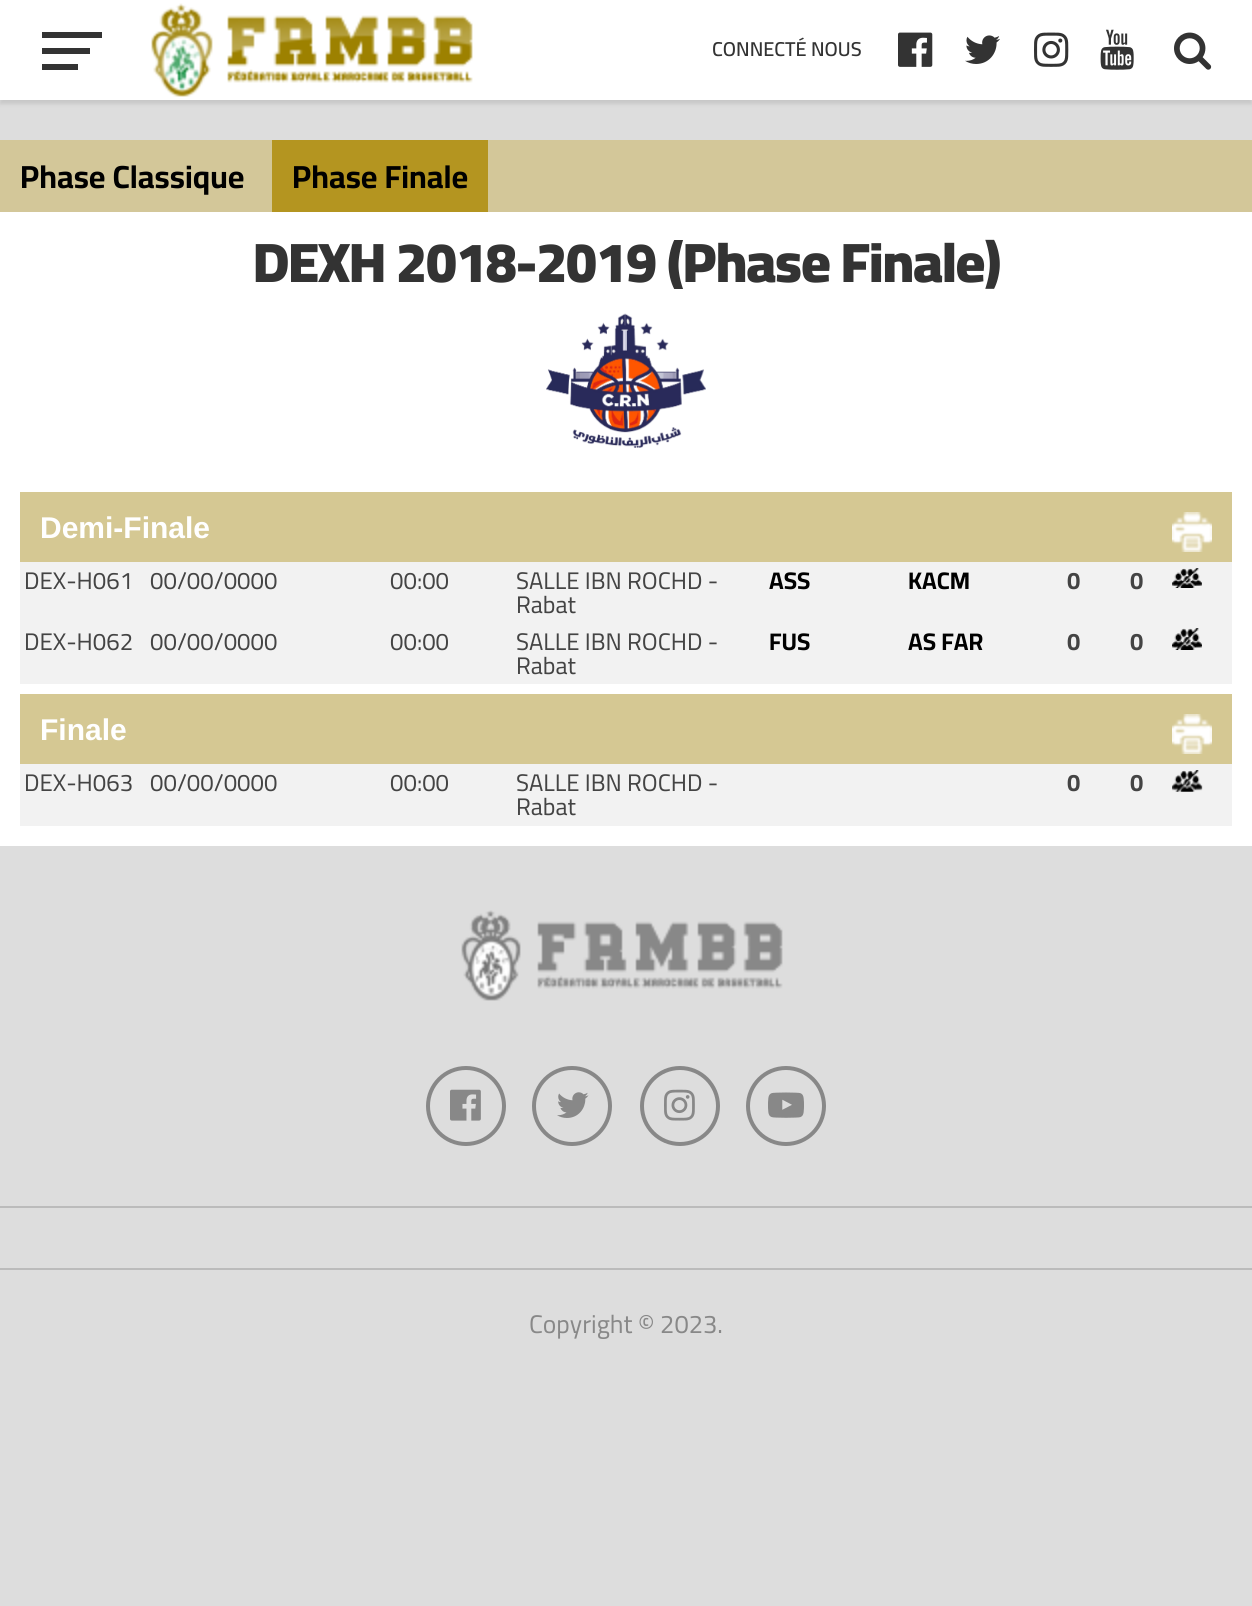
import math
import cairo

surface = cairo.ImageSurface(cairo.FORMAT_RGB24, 1252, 1606)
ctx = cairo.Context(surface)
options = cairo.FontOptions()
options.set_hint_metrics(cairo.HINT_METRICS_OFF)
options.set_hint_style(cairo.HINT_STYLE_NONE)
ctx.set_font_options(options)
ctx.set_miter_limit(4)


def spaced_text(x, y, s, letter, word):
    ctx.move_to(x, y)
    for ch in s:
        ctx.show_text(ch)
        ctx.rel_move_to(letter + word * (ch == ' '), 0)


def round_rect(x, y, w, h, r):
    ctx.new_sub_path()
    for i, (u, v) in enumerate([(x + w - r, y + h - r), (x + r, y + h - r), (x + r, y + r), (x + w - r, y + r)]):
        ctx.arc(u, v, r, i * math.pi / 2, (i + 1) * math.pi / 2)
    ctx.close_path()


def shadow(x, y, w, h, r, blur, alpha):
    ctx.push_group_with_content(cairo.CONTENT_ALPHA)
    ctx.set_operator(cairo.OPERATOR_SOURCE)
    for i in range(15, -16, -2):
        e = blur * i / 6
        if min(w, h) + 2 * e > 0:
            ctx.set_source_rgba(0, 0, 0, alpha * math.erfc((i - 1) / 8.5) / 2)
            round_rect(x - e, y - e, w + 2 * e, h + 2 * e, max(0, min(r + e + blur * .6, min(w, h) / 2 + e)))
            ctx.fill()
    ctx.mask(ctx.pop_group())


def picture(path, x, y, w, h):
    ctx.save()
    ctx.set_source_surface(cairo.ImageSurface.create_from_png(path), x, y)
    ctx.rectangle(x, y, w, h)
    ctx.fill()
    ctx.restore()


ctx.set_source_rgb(0.867, 0.867, 0.867)
ctx.paint()
ctx.set_source_rgb(0, 0, 0)
shadow(0, 4, 1252, 100, 0, 2, 0.1)
ctx.set_source_rgb(1, 1, 1)
ctx.rectangle(0, 0, 1252, 100)
ctx.fill()
ctx.set_source_rgb(0.2, 0.2, 0.2)
ctx.rectangle(42, 32, 60, 6)
ctx.fill()
ctx.rectangle(42, 48, 48, 6)
ctx.fill()
ctx.rectangle(42, 64, 36, 6)
ctx.fill()
picture("img1.png", 151, 3, 322, 94)
ctx.select_font_face("Cairo SemiBold")
ctx.set_font_size(20)
ctx.move_to(712, 56)
ctx.show_text("CONNECTÉ NOUS")
picture("img2.png", 898, 32, 35, 35)
picture("img3.png", 965, 35, 35, 29)
picture("img4.png", 1034, 32, 35, 35)
picture("img5.png", 1100, 29, 34, 41)
picture("img6.png", 1174, 32, 38, 38)
ctx.set_source_rgb(0.827, 0.78, 0.6)
ctx.rectangle(0, 140, 1252, 72)
ctx.fill()
ctx.select_font_face("Cairo", cairo.FONT_SLANT_NORMAL, cairo.FONT_WEIGHT_BOLD)
ctx.set_font_size(32)
ctx.set_source_rgb(0, 0, 0)
ctx.move_to(20, 188)
ctx.show_text("Phase Classique")
ctx.set_source_rgb(0.706, 0.584, 0.125)
ctx.rectangle(272, 140, 216, 72)
ctx.fill()
ctx.set_source_rgb(0, 0, 0)
ctx.move_to(292, 188)
ctx.show_text("Phase Finale")
ctx.set_source_rgb(1, 1, 1)
ctx.rectangle(0, 212, 1252, 634)
ctx.fill()
ctx.select_font_face("Cairo Black")
ctx.set_font_size(56)
ctx.set_source_rgb(0.2, 0.2, 0.2)
spaced_text(253, 282, "DEXH 2018-2019 (Phase Finale)", -1.1, 0)
picture("img7.png", 546, 313, 160, 135)
ctx.set_source_rgb(0.835, 0.784, 0.576)
ctx.rectangle(20, 492, 1212, 70)
ctx.fill()
ctx.select_font_face("Liberation Sans", cairo.FONT_SLANT_NORMAL, cairo.FONT_WEIGHT_BOLD)
ctx.set_font_size(30)
ctx.set_source_rgb(1, 1, 1)
ctx.move_to(40, 538)
ctx.show_text("Demi-Finale")
picture("img8.png", 1172, 512, 40, 40)
ctx.set_source_rgb(0.949, 0.949, 0.949)
ctx.rectangle(20, 562, 1212, 122)
ctx.fill()
ctx.select_font_face("Cairo")
ctx.set_font_size(24)
ctx.set_source_rgb(0.267, 0.267, 0.267)
ctx.move_to(24, 589)
ctx.show_text("DEX-H061")
ctx.move_to(150, 589)
ctx.show_text("00/00/0000")
ctx.move_to(390, 589)
ctx.show_text("00:00")
ctx.move_to(516, 589)
ctx.show_text("SALLE IBN ROCHD -")
ctx.move_to(516, 613)
ctx.show_text("Rabat")
ctx.select_font_face("Cairo", cairo.FONT_SLANT_NORMAL, cairo.FONT_WEIGHT_BOLD)
ctx.set_source_rgb(0, 0, 0)
ctx.move_to(769, 589)
ctx.show_text("ASS")
ctx.move_to(908, 589)
ctx.show_text("KACM")
ctx.set_source_rgb(0.267, 0.267, 0.267)
ctx.move_to(1067, 589)
ctx.show_text("0")
ctx.move_to(1130, 589)
ctx.show_text("0")
picture("img9.png", 1172, 568, 30, 20)
ctx.select_font_face("Cairo")
ctx.move_to(24, 650)
ctx.show_text("DEX-H062")
ctx.move_to(150, 650)
ctx.show_text("00/00/0000")
ctx.move_to(390, 650)
ctx.show_text("00:00")
ctx.move_to(516, 650)
ctx.show_text("SALLE IBN ROCHD -")
ctx.move_to(516, 674)
ctx.show_text("Rabat")
ctx.select_font_face("Cairo", cairo.FONT_SLANT_NORMAL, cairo.FONT_WEIGHT_BOLD)
ctx.set_source_rgb(0, 0, 0)
ctx.move_to(769, 650)
ctx.show_text("FUS")
ctx.move_to(908, 650)
ctx.show_text("AS FAR")
ctx.set_source_rgb(0.267, 0.267, 0.267)
ctx.move_to(1067, 650)
ctx.show_text("0")
ctx.move_to(1130, 650)
ctx.show_text("0")
picture("img10.png", 1172, 628, 30, 22)
ctx.set_source_rgb(0.835, 0.784, 0.576)
ctx.rectangle(20, 694, 1212, 70)
ctx.fill()
ctx.select_font_face("Liberation Sans", cairo.FONT_SLANT_NORMAL, cairo.FONT_WEIGHT_BOLD)
ctx.set_font_size(30)
ctx.set_source_rgb(1, 1, 1)
ctx.move_to(40, 740)
ctx.show_text("Finale")
picture("img8.png", 1172, 714, 40, 40)
ctx.set_source_rgb(0.949, 0.949, 0.949)
ctx.rectangle(20, 764, 1212, 62)
ctx.fill()
ctx.select_font_face("Cairo")
ctx.set_font_size(24)
ctx.set_source_rgb(0.267, 0.267, 0.267)
ctx.move_to(24, 791)
ctx.show_text("DEX-H063")
ctx.move_to(150, 791)
ctx.show_text("00/00/0000")
ctx.move_to(390, 791)
ctx.show_text("00:00")
ctx.move_to(516, 791)
ctx.show_text("SALLE IBN ROCHD -")
ctx.move_to(516, 815)
ctx.show_text("Rabat")
ctx.select_font_face("Cairo", cairo.FONT_SLANT_NORMAL, cairo.FONT_WEIGHT_BOLD)
ctx.move_to(1067, 791)
ctx.show_text("0")
ctx.move_to(1130, 791)
ctx.show_text("0")
picture("img11.png", 1172, 770, 31, 22)
picture("img12.png", 461, 910, 322, 91)
ctx.arc(466, 1106, 38, 0, 2 * math.pi)
ctx.set_source_rgb(0.533, 0.533, 0.533)
ctx.set_line_width(4)
ctx.stroke()
picture("img13.png", 450, 1089, 31, 32)
ctx.arc(572, 1106, 38, 0, 2 * math.pi)
ctx.stroke()
picture("img14.png", 557, 1092, 32, 26)
ctx.arc(680, 1106, 38, 0, 2 * math.pi)
ctx.stroke()
picture("img15.png", 664, 1089, 31, 32)
ctx.arc(786, 1106, 38, 0, 2 * math.pi)
ctx.stroke()
picture("img16.png", 768, 1092, 36, 26)
ctx.set_source_rgb(0.733, 0.733, 0.733)
ctx.rectangle(0, 1206, 1252, 2)
ctx.fill()
ctx.rectangle(0, 1268, 1252, 2)
ctx.fill()
ctx.select_font_face("Cairo")
ctx.set_font_size(25.5)
ctx.set_source_rgb(0.533, 0.533, 0.533)
ctx.move_to(529, 1333)
ctx.show_text("Copyright © 2023.")
surface.write_to_png("page.png")
